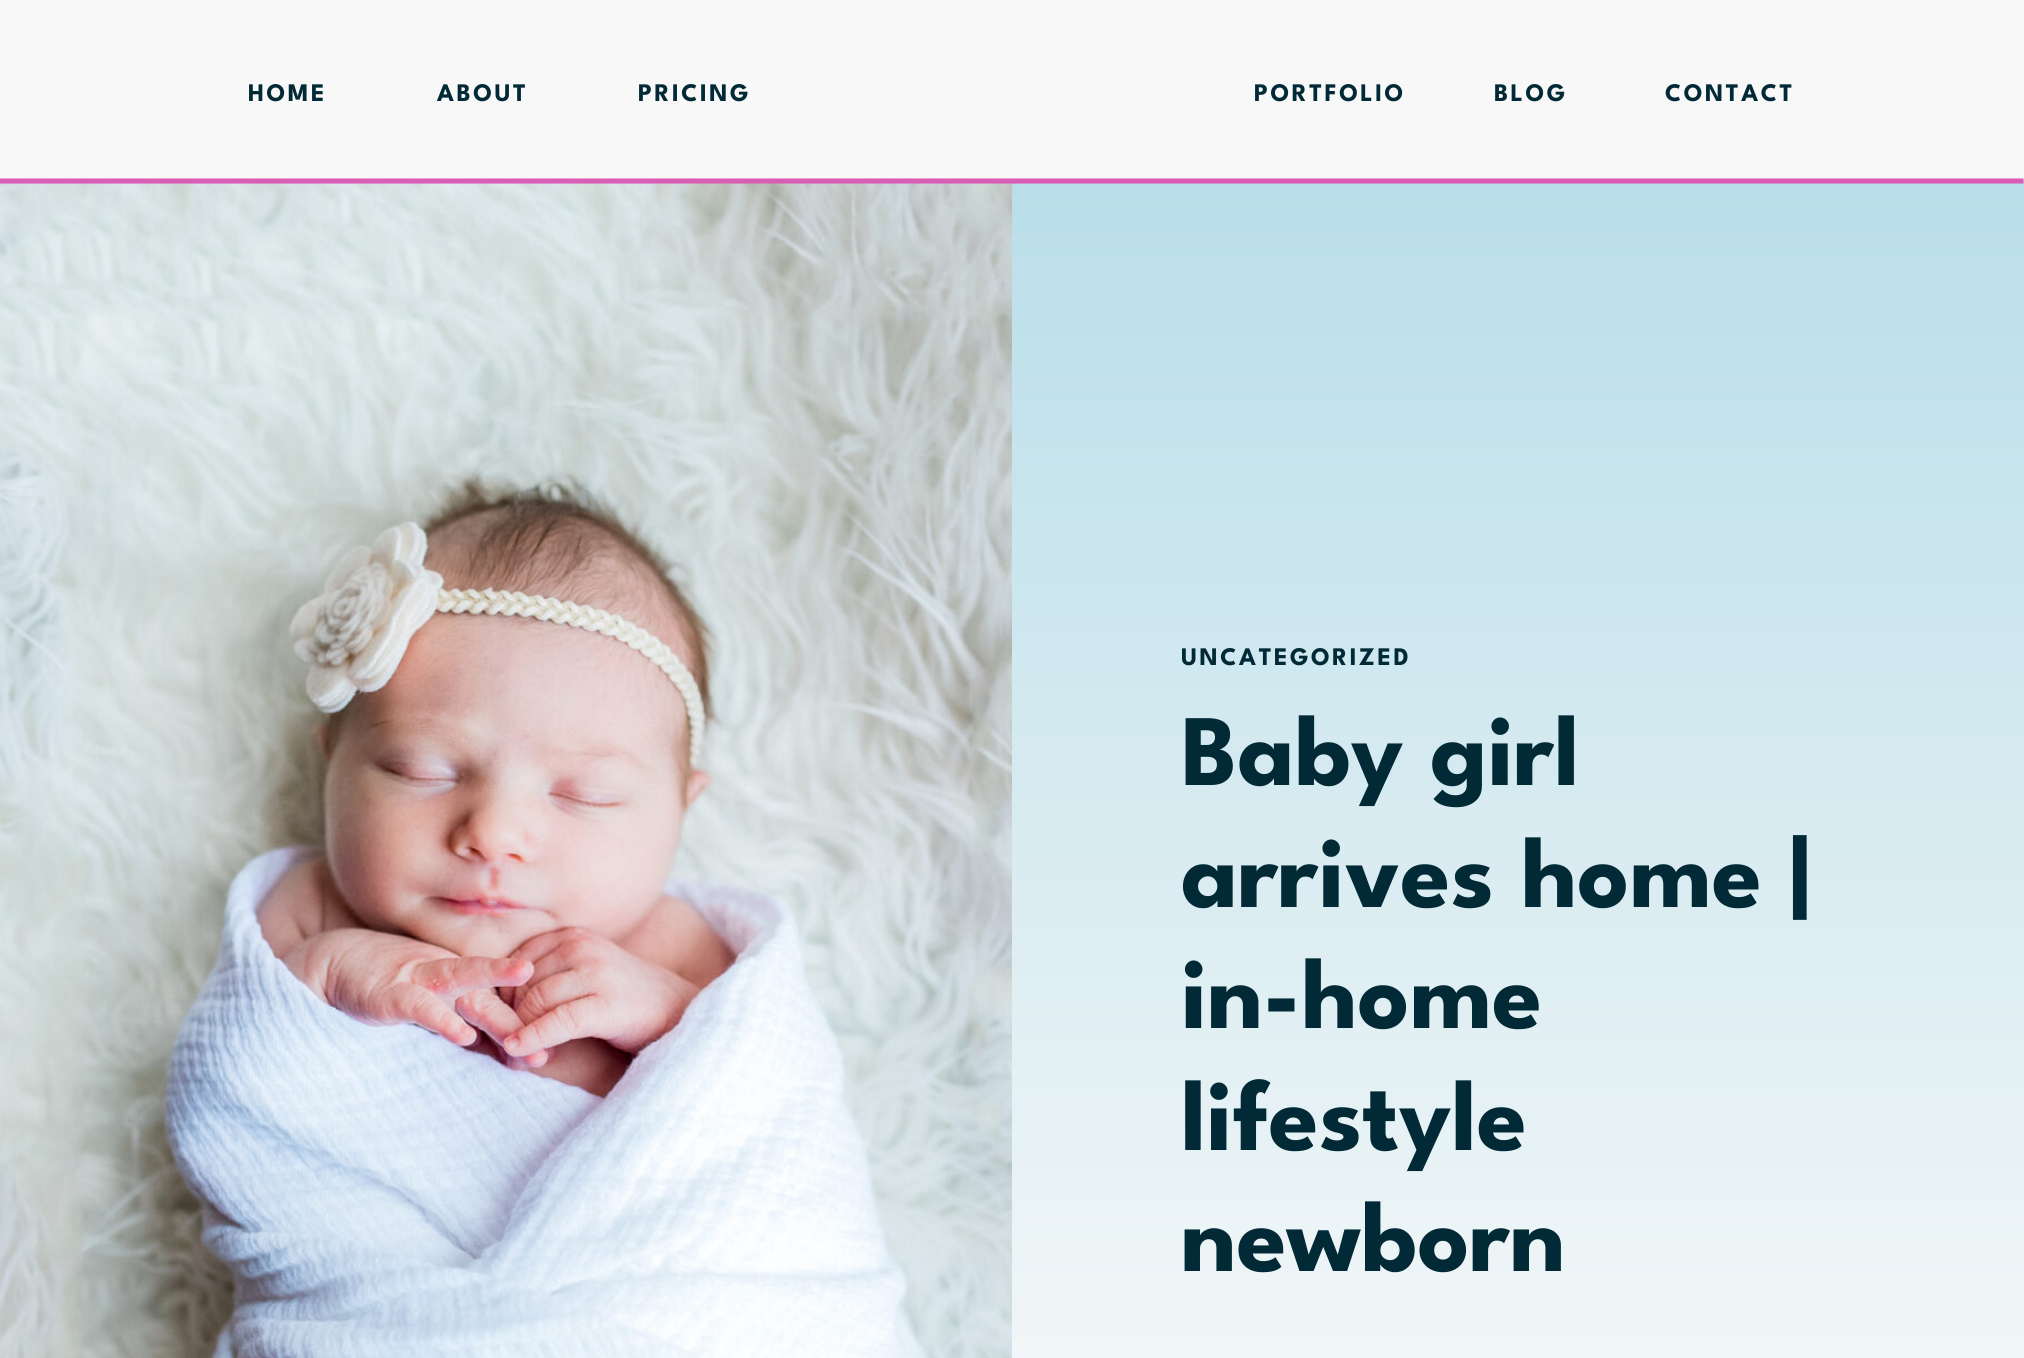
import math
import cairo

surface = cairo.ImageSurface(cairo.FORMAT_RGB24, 2024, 1358)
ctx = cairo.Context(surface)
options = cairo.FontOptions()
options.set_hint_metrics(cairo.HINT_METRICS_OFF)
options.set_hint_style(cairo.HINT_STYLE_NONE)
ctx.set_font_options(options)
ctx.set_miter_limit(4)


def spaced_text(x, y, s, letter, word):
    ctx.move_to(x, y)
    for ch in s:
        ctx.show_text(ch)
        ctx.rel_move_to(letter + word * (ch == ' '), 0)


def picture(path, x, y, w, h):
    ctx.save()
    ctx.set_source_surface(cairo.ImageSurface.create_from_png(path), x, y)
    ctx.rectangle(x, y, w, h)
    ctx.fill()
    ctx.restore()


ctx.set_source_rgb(1, 1, 1)
ctx.paint()
ctx.set_source_rgb(0.969, 0.969, 0.969)
ctx.rectangle(0, 0, 2024, 180)
ctx.fill()
ctx.select_font_face("League Spartan", cairo.FONT_SLANT_NORMAL, cairo.FONT_WEIGHT_BOLD)
ctx.set_font_size(25.25)
ctx.set_source_rgb(0.004, 0.165, 0.212)
spaced_text(248, 101, "HOME", 2.5, 0)
spaced_text(437, 101, "ABOUT", 2.5, 0)
spaced_text(638, 101, "PRICING", 2.5, 0)
spaced_text(1254, 101, "PORTFOLIO", 2.5, 0)
spaced_text(1494, 101, "BLOG", 2.5, 0)
spaced_text(1665, 101, "CONTACT", 2.5, 0)
gradient = cairo.LinearGradient(1012, 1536, 1012, 178)
gradient.add_color_stop_rgba(0, 0.98, 0.98, 0.98, 1)
gradient.add_color_stop_rgba(1, 0.725, 0.871, 0.914, 1)
ctx.set_source(gradient)
ctx.rectangle(1012, 180, 1012, 1178)
ctx.fill()
picture("img1.png", 0, 183, 1012, 1175)
ctx.new_path()
ctx.move_to(-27.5, 181)
ctx.line_to(2023.5, 181)
ctx.set_source_rgb(0.855, 0.365, 0.71)
ctx.set_line_width(5.1)
ctx.stroke()
ctx.set_source_rgb(0.004, 0.165, 0.212)
spaced_text(1181, 665, "UNCATEGORIZED", 2.5, 0)
ctx.set_font_size(101.25)
ctx.move_to(1181, 785)
ctx.show_text("Baby girl")
ctx.move_to(1181, 907)
ctx.show_text("arrives home |")
ctx.move_to(1181, 1028)
ctx.show_text("in-home")
ctx.move_to(1181, 1150)
ctx.show_text("lifestyle")
ctx.move_to(1181, 1271)
ctx.show_text("newborn")
surface.write_to_png("page.png")
